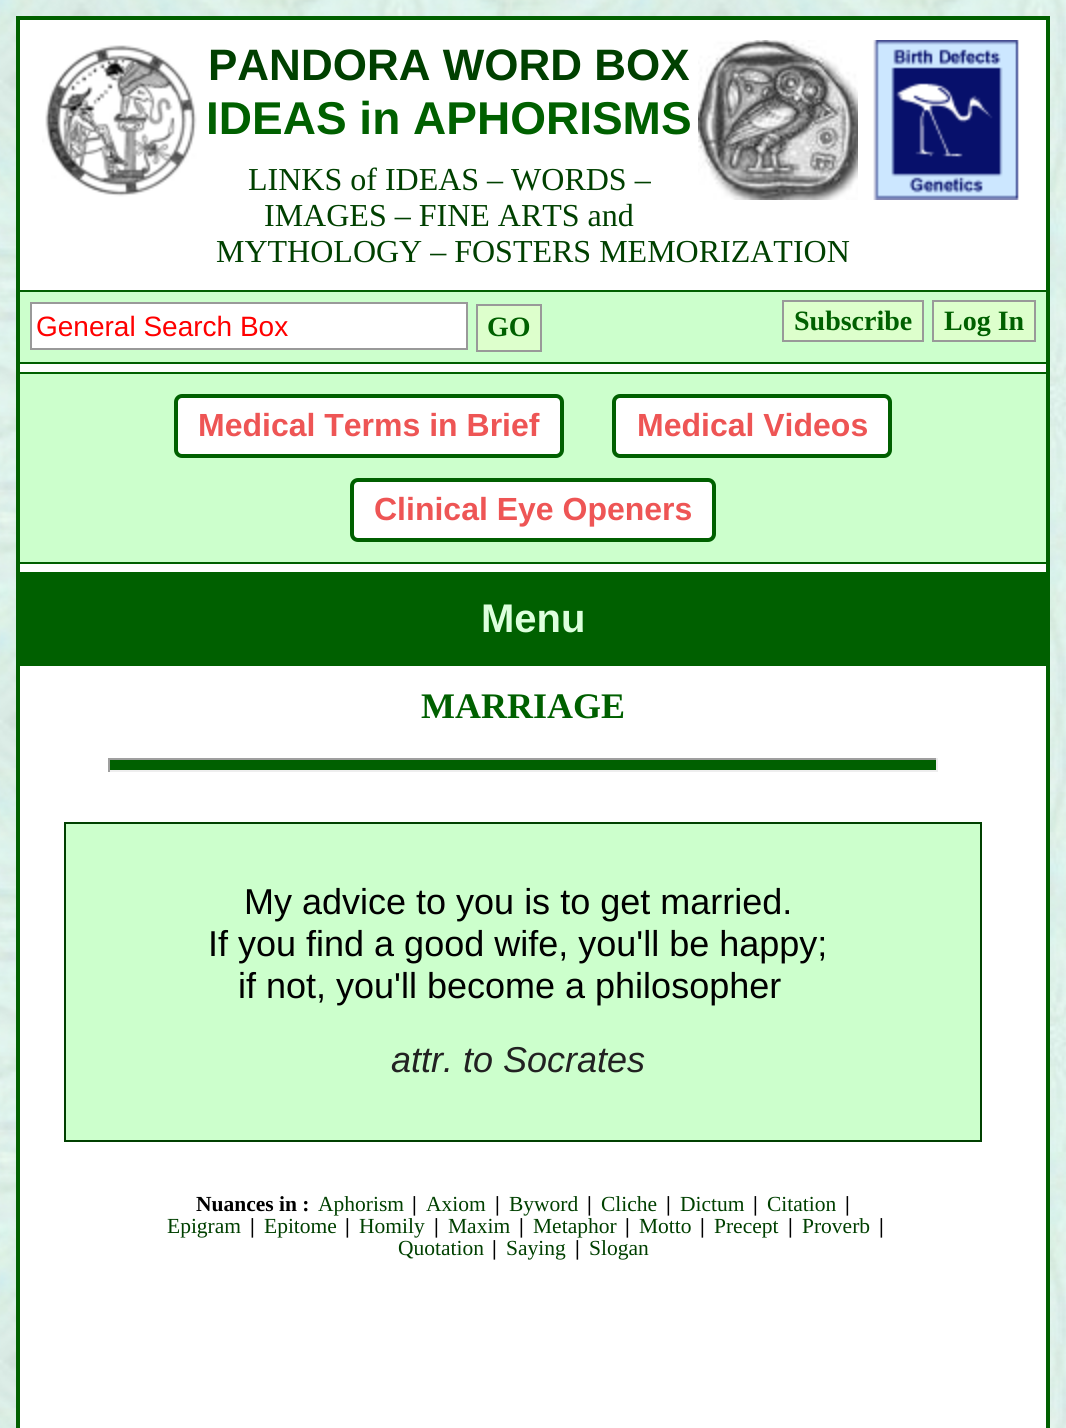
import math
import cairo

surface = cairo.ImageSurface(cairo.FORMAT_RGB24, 1066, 1428)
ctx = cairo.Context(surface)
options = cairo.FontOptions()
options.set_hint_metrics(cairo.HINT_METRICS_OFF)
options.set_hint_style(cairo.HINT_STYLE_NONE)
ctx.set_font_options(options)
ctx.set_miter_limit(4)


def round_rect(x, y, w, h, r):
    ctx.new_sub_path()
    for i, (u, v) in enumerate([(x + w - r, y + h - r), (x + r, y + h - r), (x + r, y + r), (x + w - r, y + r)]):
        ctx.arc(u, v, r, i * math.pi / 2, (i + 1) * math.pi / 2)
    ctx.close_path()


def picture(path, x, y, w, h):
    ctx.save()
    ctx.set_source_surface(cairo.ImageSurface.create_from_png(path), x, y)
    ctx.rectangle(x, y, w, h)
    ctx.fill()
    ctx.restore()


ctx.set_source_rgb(1, 1, 1)
ctx.paint()
picture("img1.png", 0, 0, 1066, 1428)
ctx.set_source_rgb(1, 1, 1)
ctx.rectangle(18, 18, 1030, 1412)
ctx.fill_preserve()
ctx.set_source_rgb(0, 0.376, 0)
ctx.set_line_width(4)
ctx.stroke()
picture("img2.png", 42, 45, 155, 152)
ctx.select_font_face("Liberation Sans", cairo.FONT_SLANT_NORMAL, cairo.FONT_WEIGHT_BOLD)
ctx.set_font_size(44)
ctx.set_source_rgb(0, 0.251, 0)
ctx.move_to(208, 80)
ctx.show_text("PANDORA WORD BOX")
ctx.set_font_size(46)
ctx.set_source_rgb(0, 0.376, 0)
ctx.move_to(206, 134)
ctx.show_text("IDEAS in APHORISMS")
ctx.select_font_face("Liberation Serif")
ctx.set_font_size(32)
ctx.set_source_rgb(0, 0.251, 0)
ctx.move_to(248, 190)
ctx.show_text("LINKS of IDEAS – WORDS –")
ctx.move_to(264, 226)
ctx.show_text("IMAGES – FINE ARTS and")
ctx.move_to(216, 262)
ctx.show_text("MYTHOLOGY – FOSTERS MEMORIZATION")
picture("img3.png", 698, 40, 160, 160)
picture("img4.png", 873, 40, 146, 160)
ctx.set_source_rgb(0.8, 1, 0.8)
ctx.rectangle(20, 292, 1026, 70)
ctx.fill()
ctx.set_source_rgb(0, 0.376, 0)
ctx.rectangle(20, 290, 1026, 2)
ctx.fill()
ctx.rectangle(20, 362, 1026, 2)
ctx.fill()
ctx.set_source_rgb(1, 1, 1)
ctx.rectangle(31, 303, 436, 46)
ctx.fill_preserve()
ctx.set_source_rgb(0.6, 0.6, 0.6)
ctx.set_line_width(2)
ctx.stroke()
ctx.select_font_face("Liberation Sans")
ctx.set_font_size(28)
ctx.set_source_rgb(1, 0, 0)
ctx.move_to(36, 336)
ctx.show_text("General Search Box")
ctx.set_source_rgb(0.867, 1, 0.8)
ctx.rectangle(477, 305, 64, 46)
ctx.fill_preserve()
ctx.set_source_rgb(0.6, 0.6, 0.6)
ctx.stroke()
ctx.select_font_face("Liberation Serif", cairo.FONT_SLANT_NORMAL, cairo.FONT_WEIGHT_BOLD)
ctx.set_source_rgb(0, 0.376, 0)
ctx.move_to(487, 336)
ctx.show_text("GO")
ctx.set_source_rgb(0.867, 1, 0.8)
ctx.rectangle(783, 301, 140, 40)
ctx.fill_preserve()
ctx.set_source_rgb(0.6, 0.6, 0.6)
ctx.stroke()
ctx.set_source_rgb(0, 0.376, 0)
ctx.move_to(794, 330)
ctx.show_text("Subscribe")
ctx.set_source_rgb(0.867, 1, 0.8)
ctx.rectangle(933, 301, 102, 40)
ctx.fill_preserve()
ctx.set_source_rgb(0.6, 0.6, 0.6)
ctx.stroke()
ctx.set_source_rgb(0, 0.376, 0)
ctx.move_to(944, 330)
ctx.show_text("Log In")
ctx.set_source_rgb(0.8, 1, 0.8)
ctx.rectangle(20, 374, 1026, 188)
ctx.fill()
ctx.set_source_rgb(0, 0.376, 0)
ctx.rectangle(20, 372, 1026, 2)
ctx.fill()
ctx.rectangle(20, 562, 1026, 2)
ctx.fill()
ctx.set_source_rgb(1, 1, 1)
round_rect(176, 396, 386, 60, 6)
ctx.fill_preserve()
ctx.set_source_rgb(0, 0.376, 0)
ctx.set_line_width(4)
ctx.stroke()
ctx.select_font_face("Liberation Sans", cairo.FONT_SLANT_NORMAL, cairo.FONT_WEIGHT_BOLD)
ctx.set_font_size(32)
ctx.set_source_rgb(0.933, 0.333, 0.333)
ctx.move_to(198, 436)
ctx.show_text("Medical Terms in Brief")
ctx.set_source_rgb(1, 1, 1)
round_rect(614, 396, 276, 60, 6)
ctx.fill_preserve()
ctx.set_source_rgb(0, 0.376, 0)
ctx.stroke()
ctx.set_source_rgb(0.933, 0.333, 0.333)
ctx.move_to(637, 436)
ctx.show_text("Medical Videos")
ctx.set_source_rgb(1, 1, 1)
round_rect(352, 480, 362, 60, 6)
ctx.fill_preserve()
ctx.set_source_rgb(0, 0.376, 0)
ctx.stroke()
ctx.set_source_rgb(0.933, 0.333, 0.333)
ctx.move_to(374, 520)
ctx.show_text("Clinical Eye Openers")
ctx.set_source_rgb(0, 0.376, 0)
ctx.rectangle(20, 572, 1026, 94)
ctx.fill()
ctx.set_font_size(40)
ctx.set_source_rgb(0.867, 1, 0.867)
ctx.move_to(481, 632)
ctx.show_text("Menu")
ctx.select_font_face("Liberation Serif", cairo.FONT_SLANT_NORMAL, cairo.FONT_WEIGHT_BOLD)
ctx.set_font_size(36)
ctx.set_source_rgb(0, 0.376, 0)
ctx.move_to(421, 718)
ctx.show_text("MARRIAGE")
ctx.rectangle(110, 760, 826, 10)
ctx.fill()
ctx.set_source_rgb(0.624, 0.624, 0.624)
ctx.rectangle(108, 758, 830, 2)
ctx.fill()
ctx.set_source_rgb(0.933, 0.933, 0.933)
ctx.rectangle(936, 758, 2, 14)
ctx.fill()
ctx.rectangle(108, 770, 830, 2)
ctx.fill()
ctx.set_source_rgb(0.624, 0.624, 0.624)
ctx.rectangle(108, 758, 2, 14)
ctx.fill()
ctx.set_source_rgb(0.8, 1, 0.8)
ctx.rectangle(65, 823, 916, 318)
ctx.fill_preserve()
ctx.set_source_rgb(0, 0.251, 0)
ctx.set_line_width(2)
ctx.stroke()
ctx.select_font_face("Liberation Sans")
ctx.set_source_rgb(0, 0, 0)
ctx.move_to(244, 914)
ctx.show_text("My advice to you is to get married.")
ctx.move_to(208, 956)
ctx.show_text("If you find a good wife, you'll be happy;")
ctx.move_to(238, 998)
ctx.show_text("if not, you'll become a philosopher")
ctx.select_font_face("Liberation Sans", cairo.FONT_SLANT_ITALIC)
ctx.set_source_rgb(0.133, 0.133, 0.133)
ctx.move_to(391, 1072)
ctx.show_text("attr. to Socrates")
ctx.select_font_face("Liberation Serif", cairo.FONT_SLANT_NORMAL, cairo.FONT_WEIGHT_BOLD)
ctx.set_font_size(21.5)
ctx.set_source_rgb(0, 0, 0)
ctx.move_to(196, 1211)
ctx.show_text("Nuances in :")
ctx.select_font_face("Liberation Serif")
ctx.set_source_rgb(0, 0.251, 0)
ctx.move_to(318, 1211)
ctx.show_text("Aphorism")
ctx.select_font_face("Liberation Serif", cairo.FONT_SLANT_NORMAL, cairo.FONT_WEIGHT_BOLD)
ctx.set_source_rgb(0, 0, 0)
ctx.move_to(412, 1211)
ctx.show_text("|")
ctx.select_font_face("Liberation Serif")
ctx.set_source_rgb(0, 0.251, 0)
ctx.move_to(426, 1211)
ctx.show_text("Axiom")
ctx.select_font_face("Liberation Serif", cairo.FONT_SLANT_NORMAL, cairo.FONT_WEIGHT_BOLD)
ctx.set_source_rgb(0, 0, 0)
ctx.move_to(495, 1211)
ctx.show_text("|")
ctx.select_font_face("Liberation Serif")
ctx.set_source_rgb(0, 0.251, 0)
ctx.move_to(509, 1211)
ctx.show_text("Byword")
ctx.select_font_face("Liberation Serif", cairo.FONT_SLANT_NORMAL, cairo.FONT_WEIGHT_BOLD)
ctx.set_source_rgb(0, 0, 0)
ctx.move_to(587, 1211)
ctx.show_text("|")
ctx.select_font_face("Liberation Serif")
ctx.set_source_rgb(0, 0.251, 0)
ctx.move_to(601, 1211)
ctx.show_text("Cliche")
ctx.select_font_face("Liberation Serif", cairo.FONT_SLANT_NORMAL, cairo.FONT_WEIGHT_BOLD)
ctx.set_source_rgb(0, 0, 0)
ctx.move_to(666, 1211)
ctx.show_text("|")
ctx.select_font_face("Liberation Serif")
ctx.set_source_rgb(0, 0.251, 0)
ctx.move_to(680, 1211)
ctx.show_text("Dictum")
ctx.select_font_face("Liberation Serif", cairo.FONT_SLANT_NORMAL, cairo.FONT_WEIGHT_BOLD)
ctx.set_source_rgb(0, 0, 0)
ctx.move_to(753, 1211)
ctx.show_text("|")
ctx.select_font_face("Liberation Serif")
ctx.set_source_rgb(0, 0.251, 0)
ctx.move_to(767, 1211)
ctx.show_text("Citation")
ctx.select_font_face("Liberation Serif", cairo.FONT_SLANT_NORMAL, cairo.FONT_WEIGHT_BOLD)
ctx.set_source_rgb(0, 0, 0)
ctx.move_to(845, 1211)
ctx.show_text("|")
ctx.select_font_face("Liberation Serif")
ctx.set_source_rgb(0, 0.251, 0)
ctx.move_to(167, 1233)
ctx.show_text("Epigram")
ctx.select_font_face("Liberation Serif", cairo.FONT_SLANT_NORMAL, cairo.FONT_WEIGHT_BOLD)
ctx.set_source_rgb(0, 0, 0)
ctx.move_to(250, 1233)
ctx.show_text("|")
ctx.select_font_face("Liberation Serif")
ctx.set_source_rgb(0, 0.251, 0)
ctx.move_to(264, 1233)
ctx.show_text("Epitome")
ctx.select_font_face("Liberation Serif", cairo.FONT_SLANT_NORMAL, cairo.FONT_WEIGHT_BOLD)
ctx.set_source_rgb(0, 0, 0)
ctx.move_to(345, 1233)
ctx.show_text("|")
ctx.select_font_face("Liberation Serif")
ctx.set_source_rgb(0, 0.251, 0)
ctx.move_to(359, 1233)
ctx.show_text("Homily")
ctx.select_font_face("Liberation Serif", cairo.FONT_SLANT_NORMAL, cairo.FONT_WEIGHT_BOLD)
ctx.set_source_rgb(0, 0, 0)
ctx.move_to(434, 1233)
ctx.show_text("|")
ctx.select_font_face("Liberation Serif")
ctx.set_source_rgb(0, 0.251, 0)
ctx.move_to(448, 1233)
ctx.show_text("Maxim")
ctx.select_font_face("Liberation Serif", cairo.FONT_SLANT_NORMAL, cairo.FONT_WEIGHT_BOLD)
ctx.set_source_rgb(0, 0, 0)
ctx.move_to(519, 1233)
ctx.show_text("|")
ctx.select_font_face("Liberation Serif")
ctx.set_source_rgb(0, 0.251, 0)
ctx.move_to(533, 1233)
ctx.show_text("Metaphor")
ctx.select_font_face("Liberation Serif", cairo.FONT_SLANT_NORMAL, cairo.FONT_WEIGHT_BOLD)
ctx.set_source_rgb(0, 0, 0)
ctx.move_to(625, 1233)
ctx.show_text("|")
ctx.select_font_face("Liberation Serif")
ctx.set_source_rgb(0, 0.251, 0)
ctx.move_to(639, 1233)
ctx.show_text("Motto")
ctx.select_font_face("Liberation Serif", cairo.FONT_SLANT_NORMAL, cairo.FONT_WEIGHT_BOLD)
ctx.set_source_rgb(0, 0, 0)
ctx.move_to(700, 1233)
ctx.show_text("|")
ctx.select_font_face("Liberation Serif")
ctx.set_source_rgb(0, 0.251, 0)
ctx.move_to(714, 1233)
ctx.show_text("Precept")
ctx.select_font_face("Liberation Serif", cairo.FONT_SLANT_NORMAL, cairo.FONT_WEIGHT_BOLD)
ctx.set_source_rgb(0, 0, 0)
ctx.move_to(788, 1233)
ctx.show_text("|")
ctx.select_font_face("Liberation Serif")
ctx.set_source_rgb(0, 0.251, 0)
ctx.move_to(802, 1233)
ctx.show_text("Proverb")
ctx.select_font_face("Liberation Serif", cairo.FONT_SLANT_NORMAL, cairo.FONT_WEIGHT_BOLD)
ctx.set_source_rgb(0, 0, 0)
ctx.move_to(879, 1233)
ctx.show_text("|")
ctx.select_font_face("Liberation Serif")
ctx.set_source_rgb(0, 0.251, 0)
ctx.move_to(398, 1255)
ctx.show_text("Quotation")
ctx.select_font_face("Liberation Serif", cairo.FONT_SLANT_NORMAL, cairo.FONT_WEIGHT_BOLD)
ctx.set_source_rgb(0, 0, 0)
ctx.move_to(492, 1255)
ctx.show_text("|")
ctx.select_font_face("Liberation Serif")
ctx.set_source_rgb(0, 0.251, 0)
ctx.move_to(506, 1255)
ctx.show_text("Saying")
ctx.select_font_face("Liberation Serif", cairo.FONT_SLANT_NORMAL, cairo.FONT_WEIGHT_BOLD)
ctx.set_source_rgb(0, 0, 0)
ctx.move_to(575, 1255)
ctx.show_text("|")
ctx.select_font_face("Liberation Serif")
ctx.set_source_rgb(0, 0.251, 0)
ctx.move_to(589, 1255)
ctx.show_text("Slogan")
surface.write_to_png("page.png")
